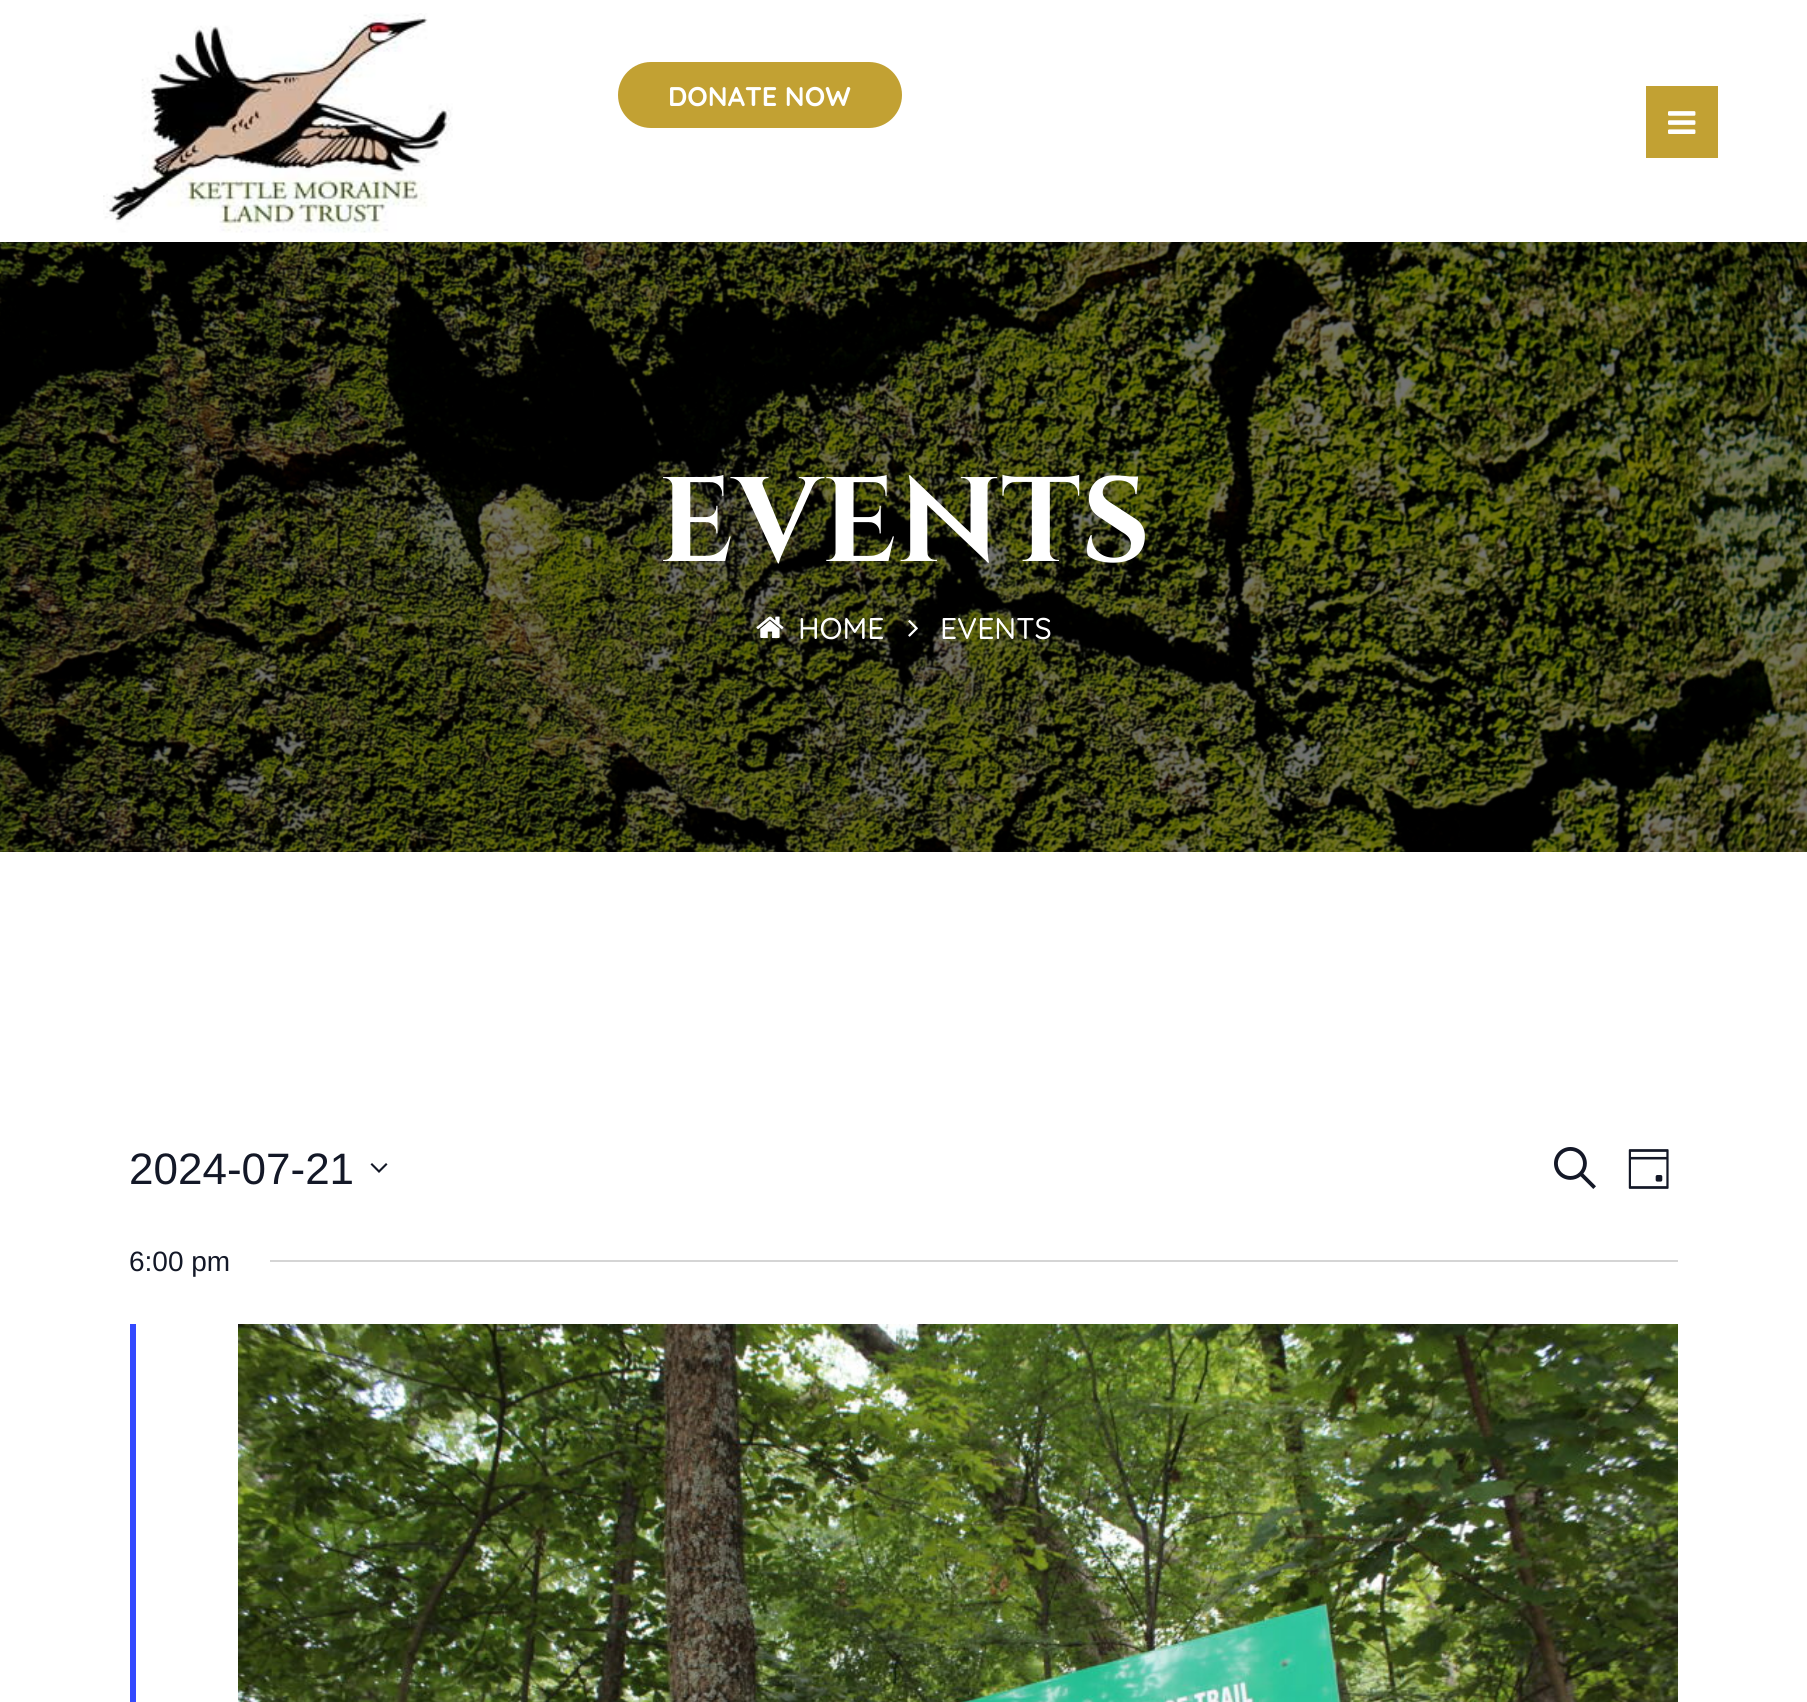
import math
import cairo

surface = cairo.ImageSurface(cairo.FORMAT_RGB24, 1807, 1702)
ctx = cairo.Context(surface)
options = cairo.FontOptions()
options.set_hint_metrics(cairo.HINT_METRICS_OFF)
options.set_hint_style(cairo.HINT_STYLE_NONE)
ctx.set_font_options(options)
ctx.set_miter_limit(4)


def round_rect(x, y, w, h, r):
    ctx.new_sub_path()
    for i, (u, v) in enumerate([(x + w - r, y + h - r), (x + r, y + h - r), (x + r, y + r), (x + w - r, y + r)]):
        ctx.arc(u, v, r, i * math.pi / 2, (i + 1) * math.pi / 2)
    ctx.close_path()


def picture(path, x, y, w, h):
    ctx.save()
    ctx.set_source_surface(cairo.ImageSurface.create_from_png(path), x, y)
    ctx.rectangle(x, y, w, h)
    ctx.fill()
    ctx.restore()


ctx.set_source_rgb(1, 1, 1)
ctx.paint()
picture("img1.png", 103, 13, 350, 220)
ctx.set_source_rgb(0.761, 0.631, 0.2)
round_rect(618, 62, 284, 66, 33)
ctx.fill()
ctx.select_font_face("Quicksand", cairo.FONT_SLANT_NORMAL, cairo.FONT_WEIGHT_BOLD)
ctx.set_font_size(27)
ctx.set_source_rgb(1, 1, 1)
ctx.move_to(668, 106)
ctx.show_text("DONATE NOW")
ctx.set_source_rgb(0.761, 0.631, 0.2)
ctx.rectangle(1646, 86, 72, 72)
ctx.fill()
picture("img2.png", 1668, 111, 28, 23)
picture("img3.png", 0, 242, 1807, 610)
ctx.select_font_face("Cinzel", cairo.FONT_SLANT_NORMAL, cairo.FONT_WEIGHT_BOLD)
ctx.set_font_size(120)
ctx.set_source_rgb(1, 1, 1)
ctx.move_to(658, 561)
ctx.show_text("EVENTS")
picture("img4.png", 756, 616, 28, 22)
ctx.select_font_face("Quicksand Medium")
ctx.set_font_size(30)
ctx.move_to(798, 639)
ctx.show_text("HOME")
picture("img5.png", 908, 620, 10, 17)
ctx.move_to(940, 639)
ctx.show_text("EVENTS")
ctx.select_font_face("Liberation Sans")
ctx.set_font_size(44)
ctx.set_source_rgb(0.078, 0.094, 0.153)
ctx.move_to(129, 1184)
ctx.show_text("2024-07-21")
ctx.set_fill_rule(cairo.FILL_RULE_EVEN_ODD)
ctx.new_path()
ctx.move_to(372, 1163)
ctx.line_to(379, 1170)
ctx.line_to(386, 1163)
ctx.line_to(387.5, 1164.5)
ctx.line_to(379, 1173)
ctx.line_to(370.5, 1164.5)
ctx.close_path()
ctx.fill()
picture("img6.png", 1554, 1147, 42, 42)
picture("img7.png", 1628, 1149, 41, 40)
ctx.set_font_size(28)
ctx.move_to(129, 1271)
ctx.show_text("6:00 pm")
ctx.set_source_rgb(0.835, 0.835, 0.835)
ctx.rectangle(270, 1260, 1408, 2)
ctx.fill()
ctx.set_source_rgb(0.2, 0.29, 1)
ctx.rectangle(130, 1324, 6, 378)
ctx.fill()
picture("img8.png", 238, 1324, 1440, 378)
surface.write_to_png("page.png")
